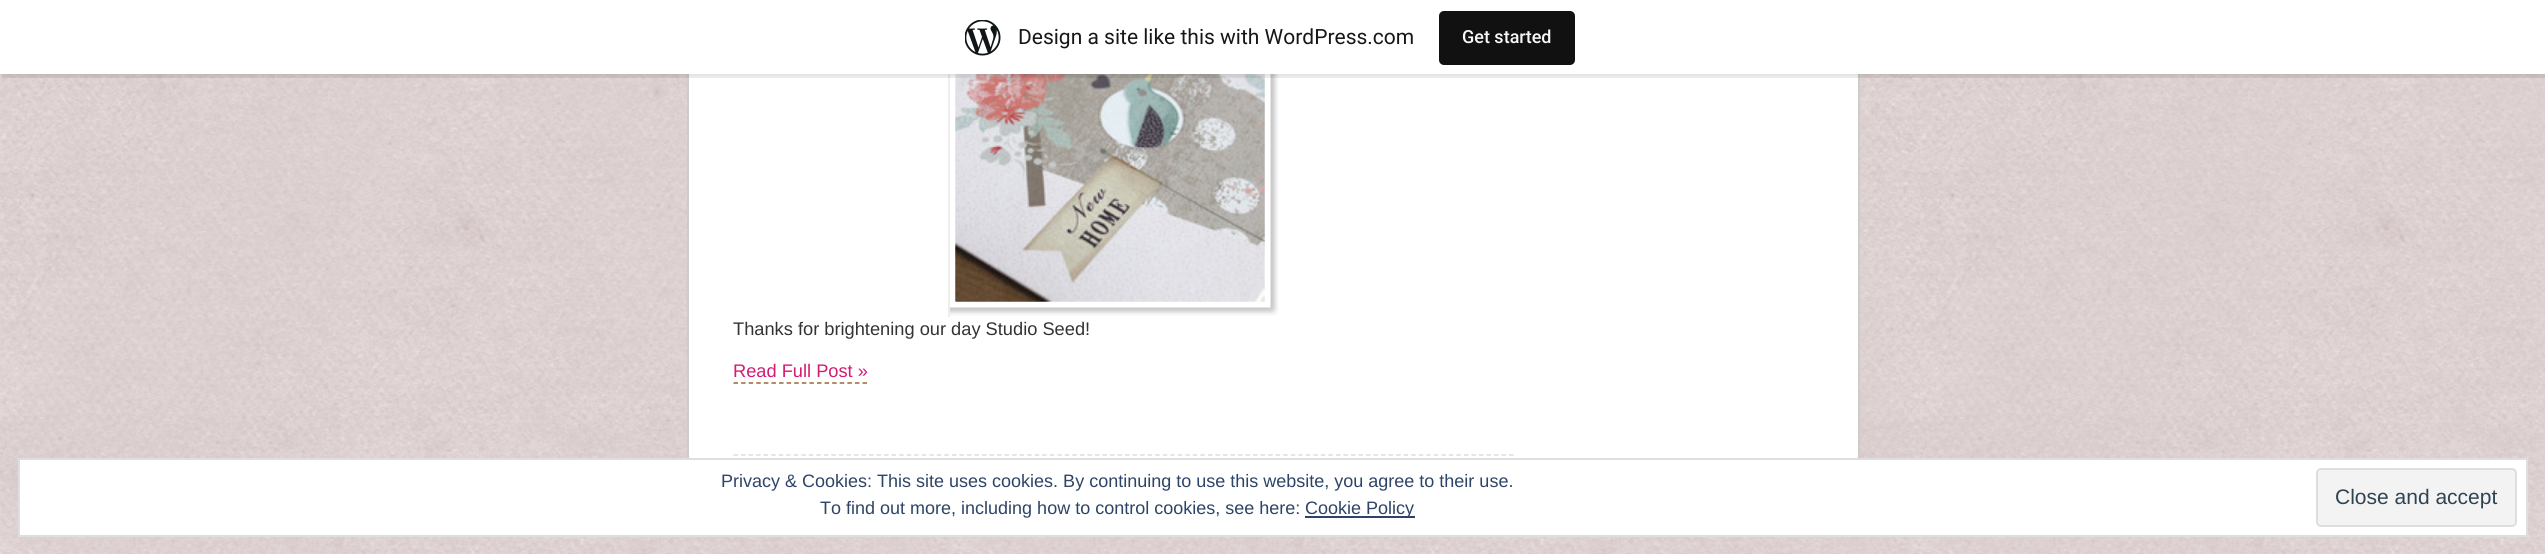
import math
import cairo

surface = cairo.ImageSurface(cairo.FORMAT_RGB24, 2545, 554)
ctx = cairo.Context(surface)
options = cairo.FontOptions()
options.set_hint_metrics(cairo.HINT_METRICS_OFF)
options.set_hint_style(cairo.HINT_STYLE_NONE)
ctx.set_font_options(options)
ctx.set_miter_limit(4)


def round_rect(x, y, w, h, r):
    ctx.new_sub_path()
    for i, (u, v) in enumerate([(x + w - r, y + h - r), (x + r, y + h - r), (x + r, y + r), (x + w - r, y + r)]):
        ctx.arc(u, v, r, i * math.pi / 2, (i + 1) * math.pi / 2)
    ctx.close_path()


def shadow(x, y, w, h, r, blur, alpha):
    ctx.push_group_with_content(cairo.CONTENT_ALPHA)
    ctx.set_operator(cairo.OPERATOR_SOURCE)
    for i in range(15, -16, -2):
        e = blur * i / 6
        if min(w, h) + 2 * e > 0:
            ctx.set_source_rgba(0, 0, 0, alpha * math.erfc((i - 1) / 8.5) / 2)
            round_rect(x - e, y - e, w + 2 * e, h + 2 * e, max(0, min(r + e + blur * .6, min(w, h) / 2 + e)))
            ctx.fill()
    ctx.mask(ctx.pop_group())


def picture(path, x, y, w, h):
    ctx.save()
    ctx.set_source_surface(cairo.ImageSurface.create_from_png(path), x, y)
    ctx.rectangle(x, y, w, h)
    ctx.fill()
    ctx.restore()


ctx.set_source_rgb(1, 1, 1)
ctx.paint()
picture("img1.png", 0, 74, 2545, 480)
ctx.set_source_rgb(1, 1, 1)
ctx.rectangle(689, 74, 1169, 384)
ctx.fill()
ctx.rectangle(688, -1, 1171, 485)
ctx.set_source_rgb(0.8, 0.8, 0.8)
ctx.stroke()
picture("img3.png", 950, 74, 329, 242)
ctx.set_source_rgb(0.933, 0.933, 0.933)
ctx.rectangle(948, 74, 2, 243)
ctx.fill()
picture("img4.png", 955, 74, 310, 228)
ctx.set_source_rgb(0, 0, 0)
shadow(0, 2, 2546, 73, 0, 1.5, 0.05)
ctx.set_source_rgba(0, 0, 0, 0.08)
ctx.new_path()
ctx.move_to(2, 74)
ctx.line_to(2, 78)
ctx.line_to(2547, 78)
ctx.line_to(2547, 5)
ctx.line_to(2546, 5)
ctx.line_to(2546, 74)
ctx.close_path()
ctx.fill()
ctx.set_source_rgb(1, 1, 1)
ctx.rectangle(0, 0, 2545, 74)
ctx.fill()
picture("img2.png", 965, 20, 36, 36)
ctx.select_font_face("Roboto")
ctx.set_font_size(21)
ctx.set_source_rgb(0.09, 0.09, 0.09)
ctx.move_to(1018, 44)
ctx.show_text("Design a site like this with WordPress.com")
ctx.set_source_rgb(0.067, 0.067, 0.067)
round_rect(1439, 11, 136, 54, 5)
ctx.fill()
ctx.select_font_face("Roboto Medium")
ctx.set_font_size(18)
ctx.set_source_rgb(0.965, 0.969, 0.969)
ctx.move_to(1462, 43)
ctx.show_text("Get started")
ctx.new_path()
ctx.move_to(733.5, 455)
ctx.line_to(1513.5, 455)
ctx.set_source_rgb(0.867, 0.867, 0.867)
ctx.set_line_width(1.5)
ctx.set_dash([4.5, 3.03])
ctx.stroke()
ctx.select_font_face("Liberation Sans")
ctx.set_font_size(18.25)
ctx.set_source_rgb(0.2, 0.2, 0.2)
ctx.move_to(733, 335)
ctx.show_text("Thanks for brightening our day Studio Seed!")
ctx.set_source_rgb(0.831, 0.106, 0.443)
ctx.move_to(733, 377)
ctx.show_text("Read Full Post »")
ctx.new_path()
ctx.move_to(733.5, 383)
ctx.line_to(867, 383)
ctx.set_source_rgb(0.6, 0.4, 0.2)
ctx.set_dash([4.5, 3.09])
ctx.stroke()
ctx.set_source_rgb(1, 1, 1)
ctx.rectangle(19, 459, 2508, 77)
ctx.fill_preserve()
ctx.set_source_rgb(0.871, 0.871, 0.871)
ctx.set_line_width(2)
ctx.set_dash([])
ctx.stroke()
ctx.set_font_size(18)
ctx.set_source_rgb(0.18, 0.267, 0.404)
ctx.move_to(721, 487)
ctx.show_text("Privacy & Cookies: This site uses cookies. By continuing to use this website, you agree to their use.")
ctx.move_to(820, 514)
ctx.show_text("To find out more, including how to control cookies, see here:")
ctx.rectangle(1305, 516, 110, 2)
ctx.fill()
ctx.move_to(1305, 514)
ctx.show_text("Cookie Policy")
ctx.set_source_rgb(0.953, 0.953, 0.953)
round_rect(2317, 469, 199, 57, 4)
ctx.fill_preserve()
ctx.set_source_rgb(0.871, 0.871, 0.871)
ctx.stroke()
ctx.set_font_size(21)
ctx.set_source_rgb(0.18, 0.267, 0.325)
ctx.move_to(2335, 504)
ctx.show_text("Close and accept")
surface.write_to_png("page.png")
